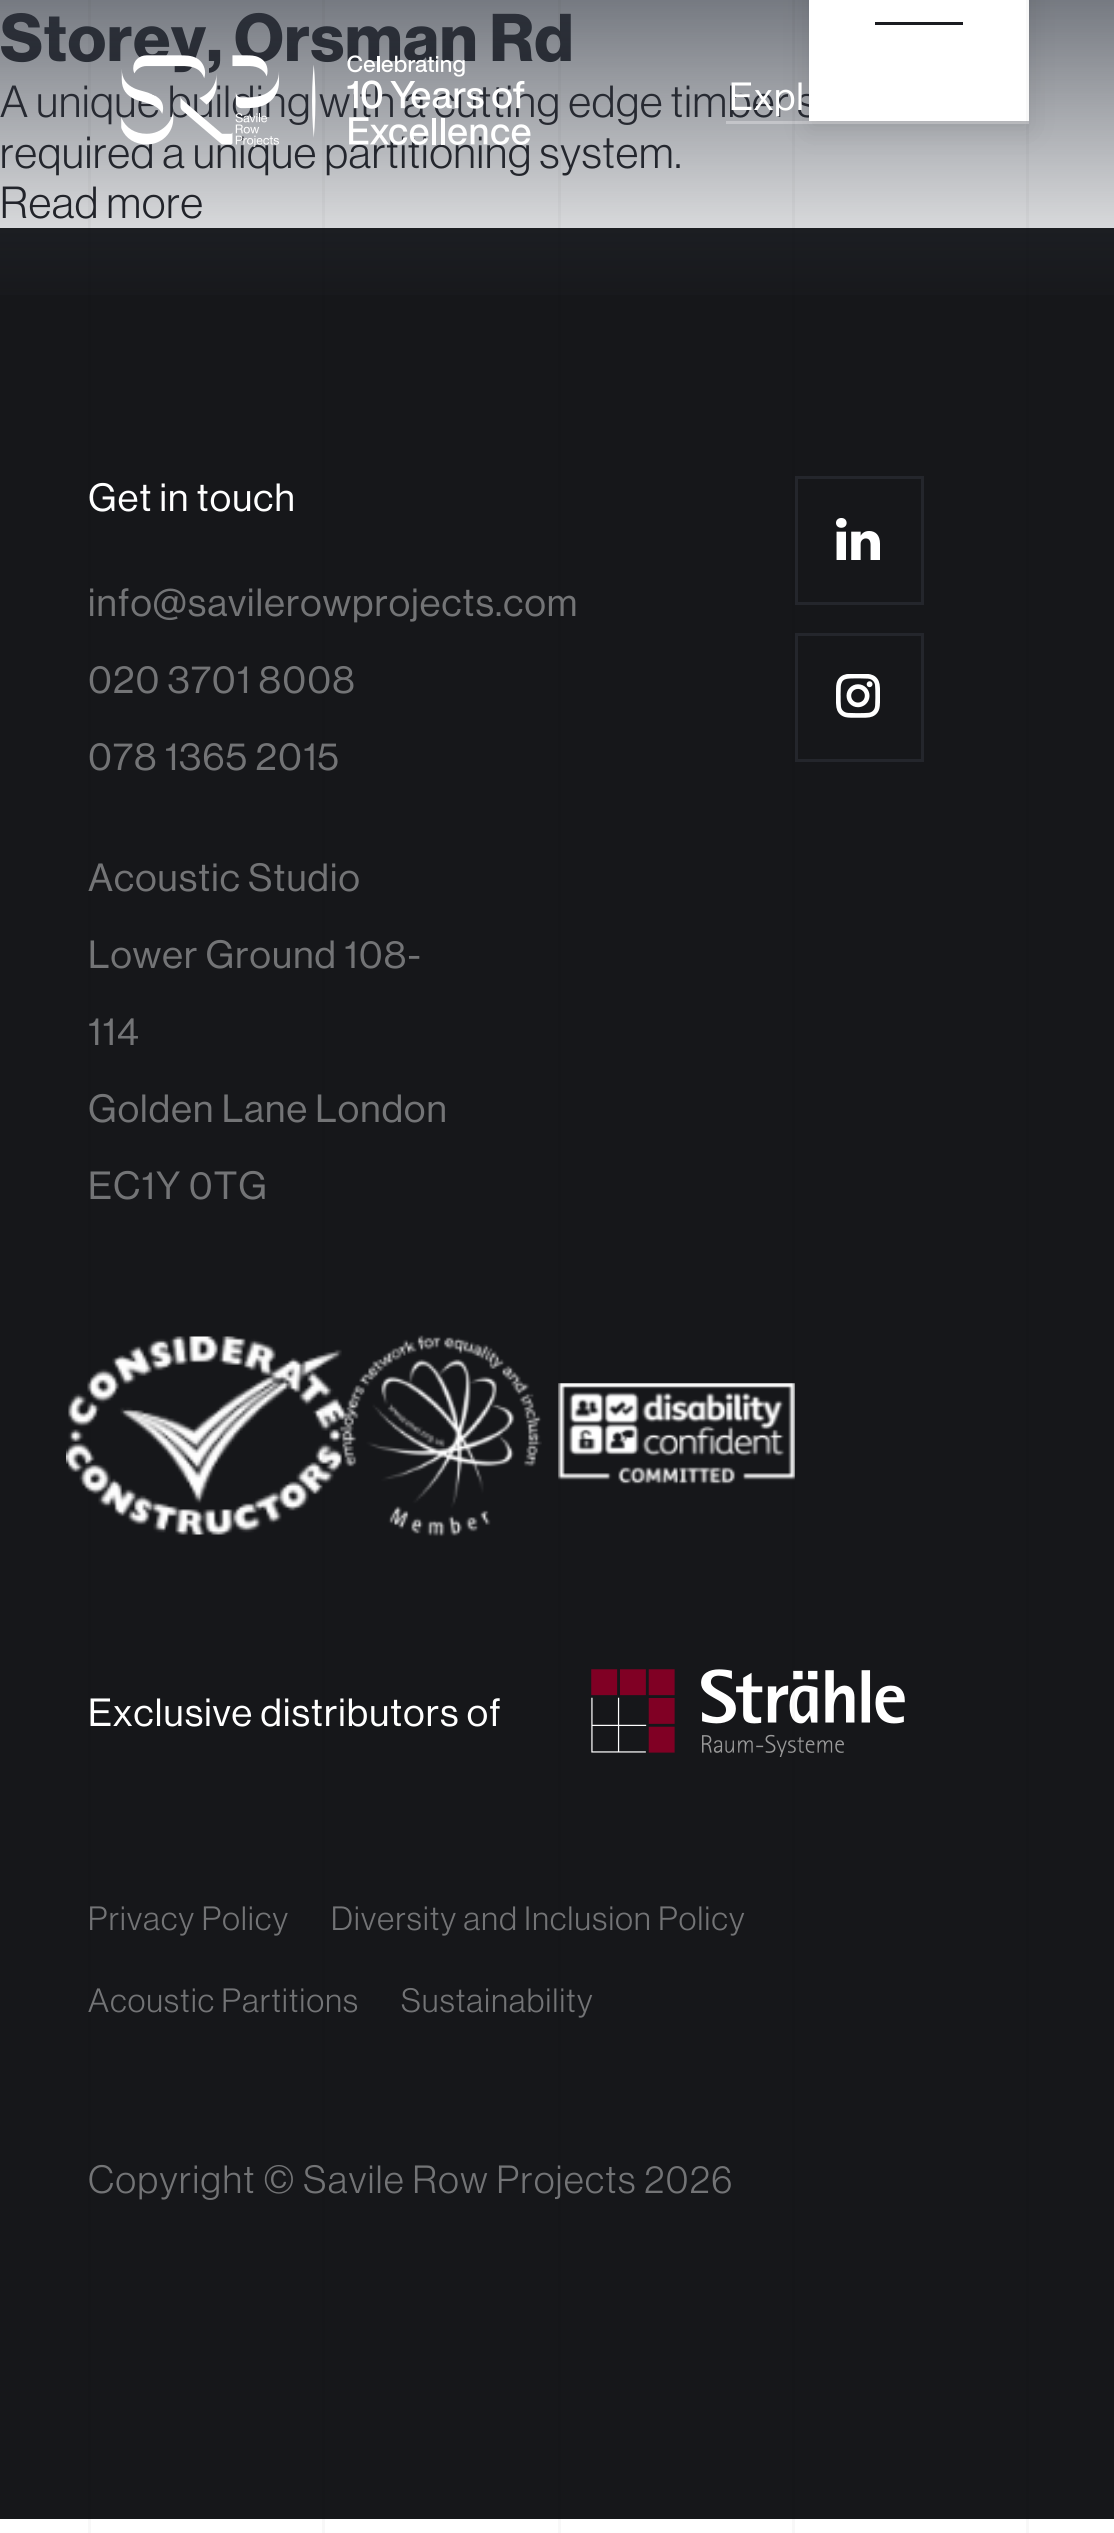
import math
import cairo

surface = cairo.ImageSurface(cairo.FORMAT_RGB24, 1114, 2533)
ctx = cairo.Context(surface)
options = cairo.FontOptions()
options.set_hint_metrics(cairo.HINT_METRICS_OFF)
options.set_hint_style(cairo.HINT_STYLE_NONE)
ctx.set_font_options(options)
ctx.set_miter_limit(4)


def spaced_text(x, y, s, letter, word):
    ctx.move_to(x, y)
    for ch in s:
        ctx.show_text(ch)
        ctx.rel_move_to(letter + word * (ch == ' '), 0)


def round_rect(x, y, w, h, r):
    ctx.new_sub_path()
    for i, (u, v) in enumerate([(x + w - r, y + h - r), (x + r, y + h - r), (x + r, y + r), (x + w - r, y + r)]):
        ctx.arc(u, v, r, i * math.pi / 2, (i + 1) * math.pi / 2)
    ctx.close_path()


def shadow(x, y, w, h, r, blur, alpha):
    ctx.push_group_with_content(cairo.CONTENT_ALPHA)
    ctx.set_operator(cairo.OPERATOR_SOURCE)
    for i in range(15, -16, -2):
        e = blur * i / 6
        if min(w, h) + 2 * e > 0:
            ctx.set_source_rgba(0, 0, 0, alpha * math.erfc((i - 1) / 8.5) / 2)
            round_rect(x - e, y - e, w + 2 * e, h + 2 * e, max(0, min(r + e + blur * .6, min(w, h) / 2 + e)))
            ctx.fill()
    ctx.mask(ctx.pop_group())


def picture(path, x, y, w, h):
    ctx.save()
    ctx.set_source_surface(cairo.ImageSurface.create_from_png(path), x, y)
    ctx.rectangle(x, y, w, h)
    ctx.fill()
    ctx.restore()


ctx.set_source_rgb(1, 1, 1)
ctx.paint()
ctx.set_source_rgb(0.086, 0.09, 0.102)
ctx.rectangle(0, 228, 1114, 2291)
ctx.fill()
picture("img3.png", 66, 1336, 281, 199)
ctx.select_font_face("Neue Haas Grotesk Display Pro", cairo.FONT_SLANT_NORMAL, cairo.FONT_WEIGHT_BOLD)
ctx.set_font_size(66)
ctx.set_source_rgb(0.106, 0.11, 0.129)
spaced_text(0, 61, "Storey, Orsman Rd", 0.9, 0)
ctx.select_font_face("Neue Haas Grotesk Display Pro")
ctx.set_font_size(44)
spaced_text(0, 117, "A unique building with a cutting edge timber s", 0.9, 0)
spaced_text(0, 168, "required a unique partitioning system.", 0.9, 0)
spaced_text(0, 218, "Read more", 0.9, 0)
gradient = cairo.LinearGradient(558, -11, 558, 319)
gradient.add_color_stop_rgba(0, 0.204, 0.227, 0.271, 0.7)
gradient.add_color_stop_rgba(1, 0.204, 0.227, 0.271, 0)
ctx.set_source(gradient)
ctx.rectangle(0, 0, 1114, 295)
ctx.fill()
ctx.set_source_rgba(0, 0, 0, 0.03)
ctx.rectangle(88, 0, 3, 2533)
ctx.fill()
picture("img7.png", 121, 55, 410, 92)
ctx.rectangle(322, 0, 3, 2533)
ctx.fill()
picture("img5.png", 558, 1383, 237, 102)
ctx.rectangle(558, 0, 3, 2533)
ctx.fill()
picture("img6.png", 591, 1669, 314, 88)
ctx.set_source_rgb(0.769, 0.773, 0.788)
ctx.rectangle(726, 121, 303, 3)
ctx.fill()
ctx.set_source_rgb(0, 0, 0)
shadow(809, -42, 220, 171, 0, 14, 0.1)
ctx.set_source_rgba(0, 0, 0, 0.03)
ctx.rectangle(792, 0, 3, 2533)
ctx.fill()
ctx.set_source_rgb(1, 1, 1)
ctx.rectangle(809, 0, 220, 121)
ctx.fill()
ctx.set_source_rgba(0, 0, 0, 0.03)
ctx.rectangle(1026, 0, 3, 2533)
ctx.fill()
ctx.select_font_face("Neue Haas Grotesk Display Pro Medium")
ctx.set_font_size(38.5)
ctx.set_source_rgb(1, 1, 1)
spaced_text(88, 511, "Get in touch", 1.15, 0)
ctx.set_source_rgb(0.451, 0.455, 0.463)
spaced_text(88, 616, "info@savilerowprojects.com", 1.15, 0)
spaced_text(88, 693, "020 3701 8008", 1.15, 0)
spaced_text(88, 770, "078 1365 2015", 1.15, 0)
spaced_text(88, 891, "Acoustic Studio", 1.15, 0)
spaced_text(88, 968, "Lower Ground 108-", 1.15, 0)
spaced_text(88, 1045, "114", 1.15, 0)
spaced_text(88, 1122, "Golden Lane London", 1.15, 0)
spaced_text(88, 1199, "EC1Y 0TG", 1.15, 0)
ctx.rectangle(796.5, 477.5, 126, 126)
ctx.set_source_rgb(0.141, 0.149, 0.173)
ctx.set_line_width(3)
ctx.stroke()
picture("img1.png", 836, 518, 44, 42)
ctx.rectangle(796.5, 634.5, 126, 126)
ctx.stroke()
picture("img2.png", 836, 674, 44, 44)
picture("img4.png", 338, 1335, 204, 202)
ctx.set_source_rgb(1, 1, 1)
spaced_text(88, 1726, "Exclusive distributors of", 1.15, 0)
ctx.select_font_face("Neue Haas Grotesk Display Pro")
ctx.set_font_size(33)
ctx.set_source_rgb(0.451, 0.455, 0.463)
spaced_text(88, 1930, "Privacy Policy", 1.3, 0)
spaced_text(331, 1930, "Diversity and Inclusion Policy", 1.3, 0)
spaced_text(88, 2012, "Acoustic Partitions", 1.3, 0)
spaced_text(401, 2012, "Sustainability", 1.3, 0)
ctx.set_font_size(38.5)
spaced_text(88, 2193, "Copyright © Savile Row Projects 2026", 1.55, 0)
ctx.set_source_rgb(0.106, 0.11, 0.129)
ctx.rectangle(875, 22, 88, 3)
ctx.fill()
ctx.select_font_face("Neue Haas Grotesk Display Pro Medium")
ctx.set_source_rgb(1, 1, 1)
spaced_text(729, 110, "Expl", 0.9, 0)
surface.write_to_png("page.png")
